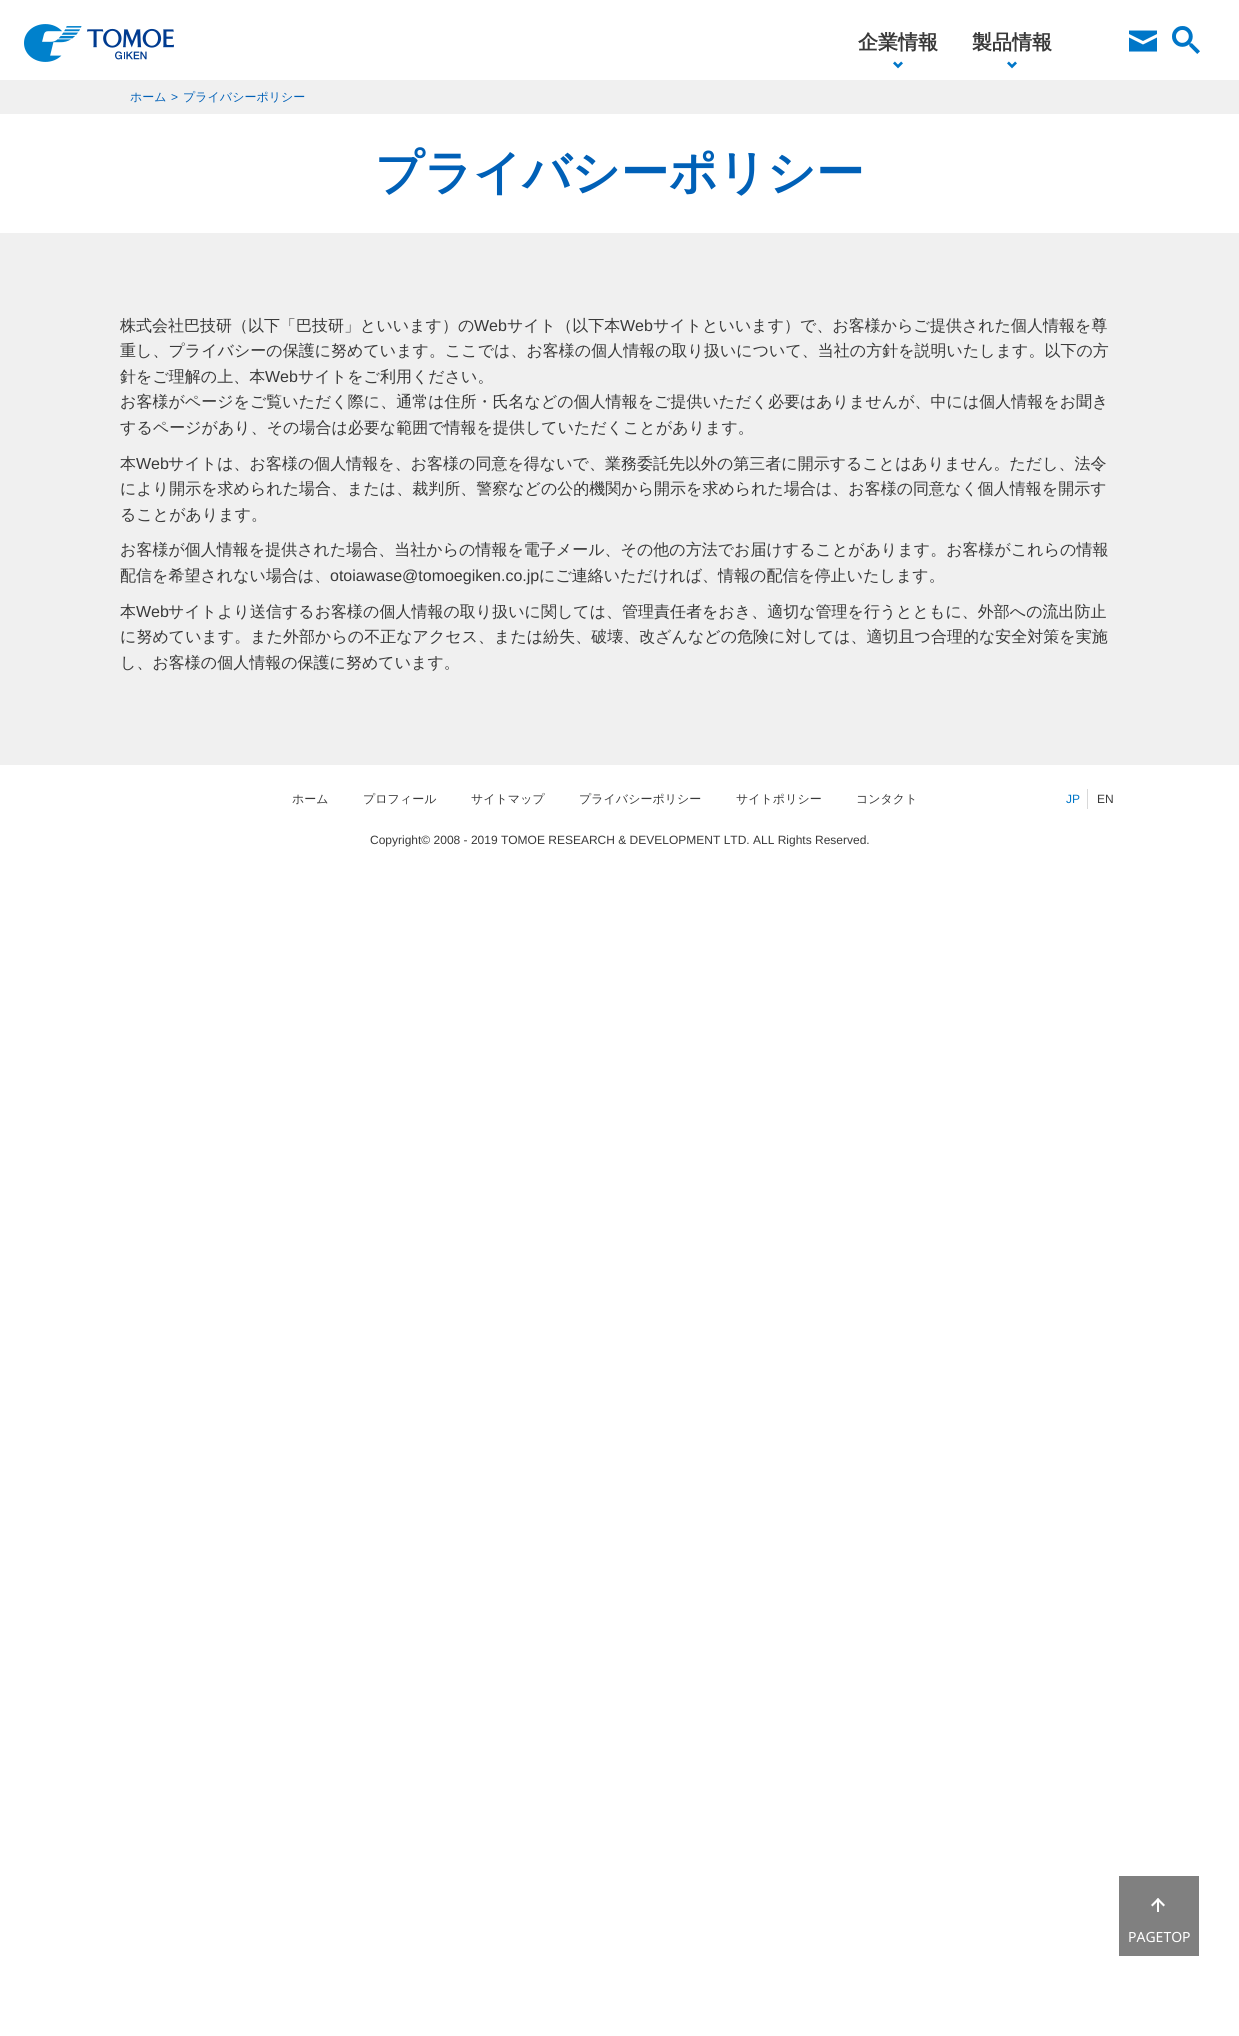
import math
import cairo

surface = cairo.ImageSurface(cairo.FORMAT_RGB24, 1239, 2036)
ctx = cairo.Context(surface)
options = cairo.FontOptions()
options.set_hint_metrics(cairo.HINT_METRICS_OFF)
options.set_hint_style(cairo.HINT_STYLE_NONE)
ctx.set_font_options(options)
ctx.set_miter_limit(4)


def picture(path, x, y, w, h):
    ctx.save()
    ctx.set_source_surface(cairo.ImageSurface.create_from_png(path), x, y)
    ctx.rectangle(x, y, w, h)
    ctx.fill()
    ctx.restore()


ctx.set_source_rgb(1, 1, 1)
ctx.paint()
picture("img1.png", 24, 24, 150, 38)
ctx.select_font_face("WenQuanYi Zen Hei", cairo.FONT_SLANT_NORMAL, cairo.FONT_WEIGHT_BOLD)
ctx.set_font_size(20)
ctx.set_source_rgb(0.224, 0.224, 0.224)
ctx.move_to(858, 49)
ctx.show_text("企業情報")
picture("img2.png", 893, 61, 10, 8)
ctx.move_to(972, 49)
ctx.show_text("製品情報")
picture("img2.png", 1007, 61, 10, 8)
ctx.set_source_rgb(0, 0.463, 0.784)
ctx.new_path()
ctx.move_to(1129, 30.5)
ctx.line_to(1157, 30.5)
ctx.line_to(1157, 34)
ctx.line_to(1143, 41)
ctx.line_to(1129, 34)
ctx.close_path()
ctx.move_to(1129, 37.5)
ctx.line_to(1143, 44.5)
ctx.line_to(1157, 37.5)
ctx.line_to(1157, 51.5)
ctx.line_to(1129, 51.5)
ctx.close_path()
ctx.fill()
picture("img3.png", 1172, 26, 28, 28)
ctx.set_source_rgb(0.941, 0.941, 0.941)
ctx.rectangle(0, 80, 1239, 34)
ctx.fill()
ctx.select_font_face("WenQuanYi Zen Hei Medium")
ctx.set_font_size(12)
ctx.set_source_rgb(0, 0.376, 0.718)
ctx.move_to(130, 101)
ctx.show_text("ホーム")
ctx.select_font_face("Liberation Sans")
ctx.move_to(171, 101)
ctx.show_text(">")
ctx.select_font_face("WenQuanYi Zen Hei Medium")
ctx.move_to(183, 101)
ctx.show_text("プライバシーポリシー")
ctx.select_font_face("WenQuanYi Zen Hei", cairo.FONT_SLANT_NORMAL, cairo.FONT_WEIGHT_BOLD)
ctx.set_font_size(48)
ctx.move_to(375, 189)
ctx.show_text("プライバシーポリシー")
ctx.set_source_rgb(0.941, 0.941, 0.941)
ctx.rectangle(0, 233, 1239, 532)
ctx.fill()
ctx.select_font_face("WenQuanYi Zen Hei Medium")
ctx.set_font_size(16)
ctx.set_source_rgb(0.224, 0.224, 0.224)
ctx.move_to(120, 331)
ctx.show_text("株式会社巴技研（以下「巴技研」といいます）の")
ctx.select_font_face("Liberation Sans")
ctx.move_to(474, 331)
ctx.show_text("Web")
ctx.select_font_face("WenQuanYi Zen Hei Medium")
ctx.move_to(507, 331)
ctx.show_text("サイト（以下本")
ctx.select_font_face("Liberation Sans")
ctx.move_to(620, 331)
ctx.show_text("Web")
ctx.select_font_face("WenQuanYi Zen Hei Medium")
ctx.move_to(653, 331)
ctx.show_text("サイトといいます）で、お客様からご提供された個人情報を尊")
ctx.move_to(120, 356)
ctx.show_text("重し、プライバシーの保護に努めています。ここでは、お客様の個人情報の取り扱いについて、当社の方針を説明いたします。以下の方")
ctx.move_to(120, 382)
ctx.show_text("針をご理解の上、本")
ctx.select_font_face("Liberation Sans")
ctx.move_to(265, 382)
ctx.show_text("Web")
ctx.select_font_face("WenQuanYi Zen Hei Medium")
ctx.move_to(298, 382)
ctx.show_text("サイトをご利用ください。")
ctx.move_to(120, 407)
ctx.show_text("お客様がページをご覧いただく際に、通常は住所・氏名などの個人情報をご提供いただく必要はありませんが、中には個人情報をお聞き")
ctx.move_to(120, 433)
ctx.show_text("するページがあり、その場合は必要な範囲で情報を提供していただくことがあります。")
ctx.move_to(120, 469)
ctx.show_text("本")
ctx.select_font_face("Liberation Sans")
ctx.move_to(136, 469)
ctx.show_text("Web")
ctx.select_font_face("WenQuanYi Zen Hei Medium")
ctx.move_to(168, 469)
ctx.show_text("サイトは、お客様の個人情報を、お客様の同意を得ないで、業務委託先以外の第三者に開示することはありません。ただし、法令")
ctx.move_to(120, 494)
ctx.show_text("により開示を求められた場合、または、裁判所、警察などの公的機関から開示を求められた場合は、お客様の同意なく個人情報を開示す")
ctx.move_to(120, 520)
ctx.show_text("ることがあります。")
ctx.move_to(120, 555)
ctx.show_text("お客様が個人情報を提供された場合、当社からの情報を電子メール、その他の方法でお届けすることがあります。お客様がこれらの情報")
ctx.move_to(120, 581)
ctx.show_text("配信を希望されない場合は、")
ctx.select_font_face("Liberation Sans")
ctx.move_to(330, 581)
ctx.show_text("otoiawase@tomoegiken.co.jp")
ctx.select_font_face("WenQuanYi Zen Hei Medium")
ctx.move_to(539, 581)
ctx.show_text("にご連絡いただければ、情報の配信を停止いたします。")
ctx.move_to(120, 617)
ctx.show_text("本")
ctx.select_font_face("Liberation Sans")
ctx.move_to(136, 617)
ctx.show_text("Web")
ctx.select_font_face("WenQuanYi Zen Hei Medium")
ctx.move_to(168, 617)
ctx.show_text("サイトより送信するお客様の個人情報の取り扱いに関しては、管理責任者をおき、適切な管理を行うとともに、外部への流出防止")
ctx.move_to(120, 642)
ctx.show_text("に努めています。また外部からの不正なアクセス、または紛失、破壊、改ざんなどの危険に対しては、適切且つ合理的な安全対策を実施")
ctx.move_to(120, 668)
ctx.show_text("し、お客様の個人情報の保護に努めています。")
ctx.set_font_size(12)
ctx.move_to(292, 803)
ctx.show_text("ホーム")
ctx.move_to(363, 803)
ctx.show_text("プロフィール")
ctx.move_to(471, 803)
ctx.show_text("サイトマップ")
ctx.move_to(579, 803)
ctx.show_text("プライバシーポリシー")
ctx.move_to(736, 803)
ctx.show_text("サイトポリシー")
ctx.move_to(856, 803)
ctx.show_text("コンタクト")
ctx.select_font_face("Liberation Sans")
ctx.set_source_rgb(0, 0.463, 0.784)
ctx.move_to(1066, 803)
ctx.show_text("JP")
ctx.set_source_rgb(0.851, 0.851, 0.851)
ctx.rectangle(1087, 789, 1, 20)
ctx.fill()
ctx.set_source_rgb(0.224, 0.224, 0.224)
ctx.move_to(1097, 803)
ctx.show_text("EN")
ctx.move_to(370, 844)
ctx.show_text("Copyright© 2008 - 2019 TOMOE RESEARCH & DEVELOPMENT LTD. ALL Rights Reserved.")
ctx.set_source_rgb(0.502, 0.502, 0.502)
ctx.rectangle(1119, 1876, 80, 80)
ctx.fill()
ctx.set_source_rgb(1, 1, 1)
ctx.rectangle(1157, 1899, 2, 13)
ctx.fill()
ctx.new_path()
ctx.move_to(1151, 1905)
ctx.line_to(1158, 1898)
ctx.line_to(1159.5, 1899.5)
ctx.line_to(1152.5, 1906.5)
ctx.close_path()
ctx.fill()
ctx.new_path()
ctx.move_to(1156.5, 1899.5)
ctx.line_to(1158, 1898)
ctx.line_to(1165, 1905)
ctx.line_to(1163.5, 1906.5)
ctx.close_path()
ctx.fill()
ctx.select_font_face("Noto Sans")
ctx.set_font_size(14)
ctx.move_to(1128, 1942)
ctx.show_text("PAGETOP")
surface.write_to_png("page.png")
